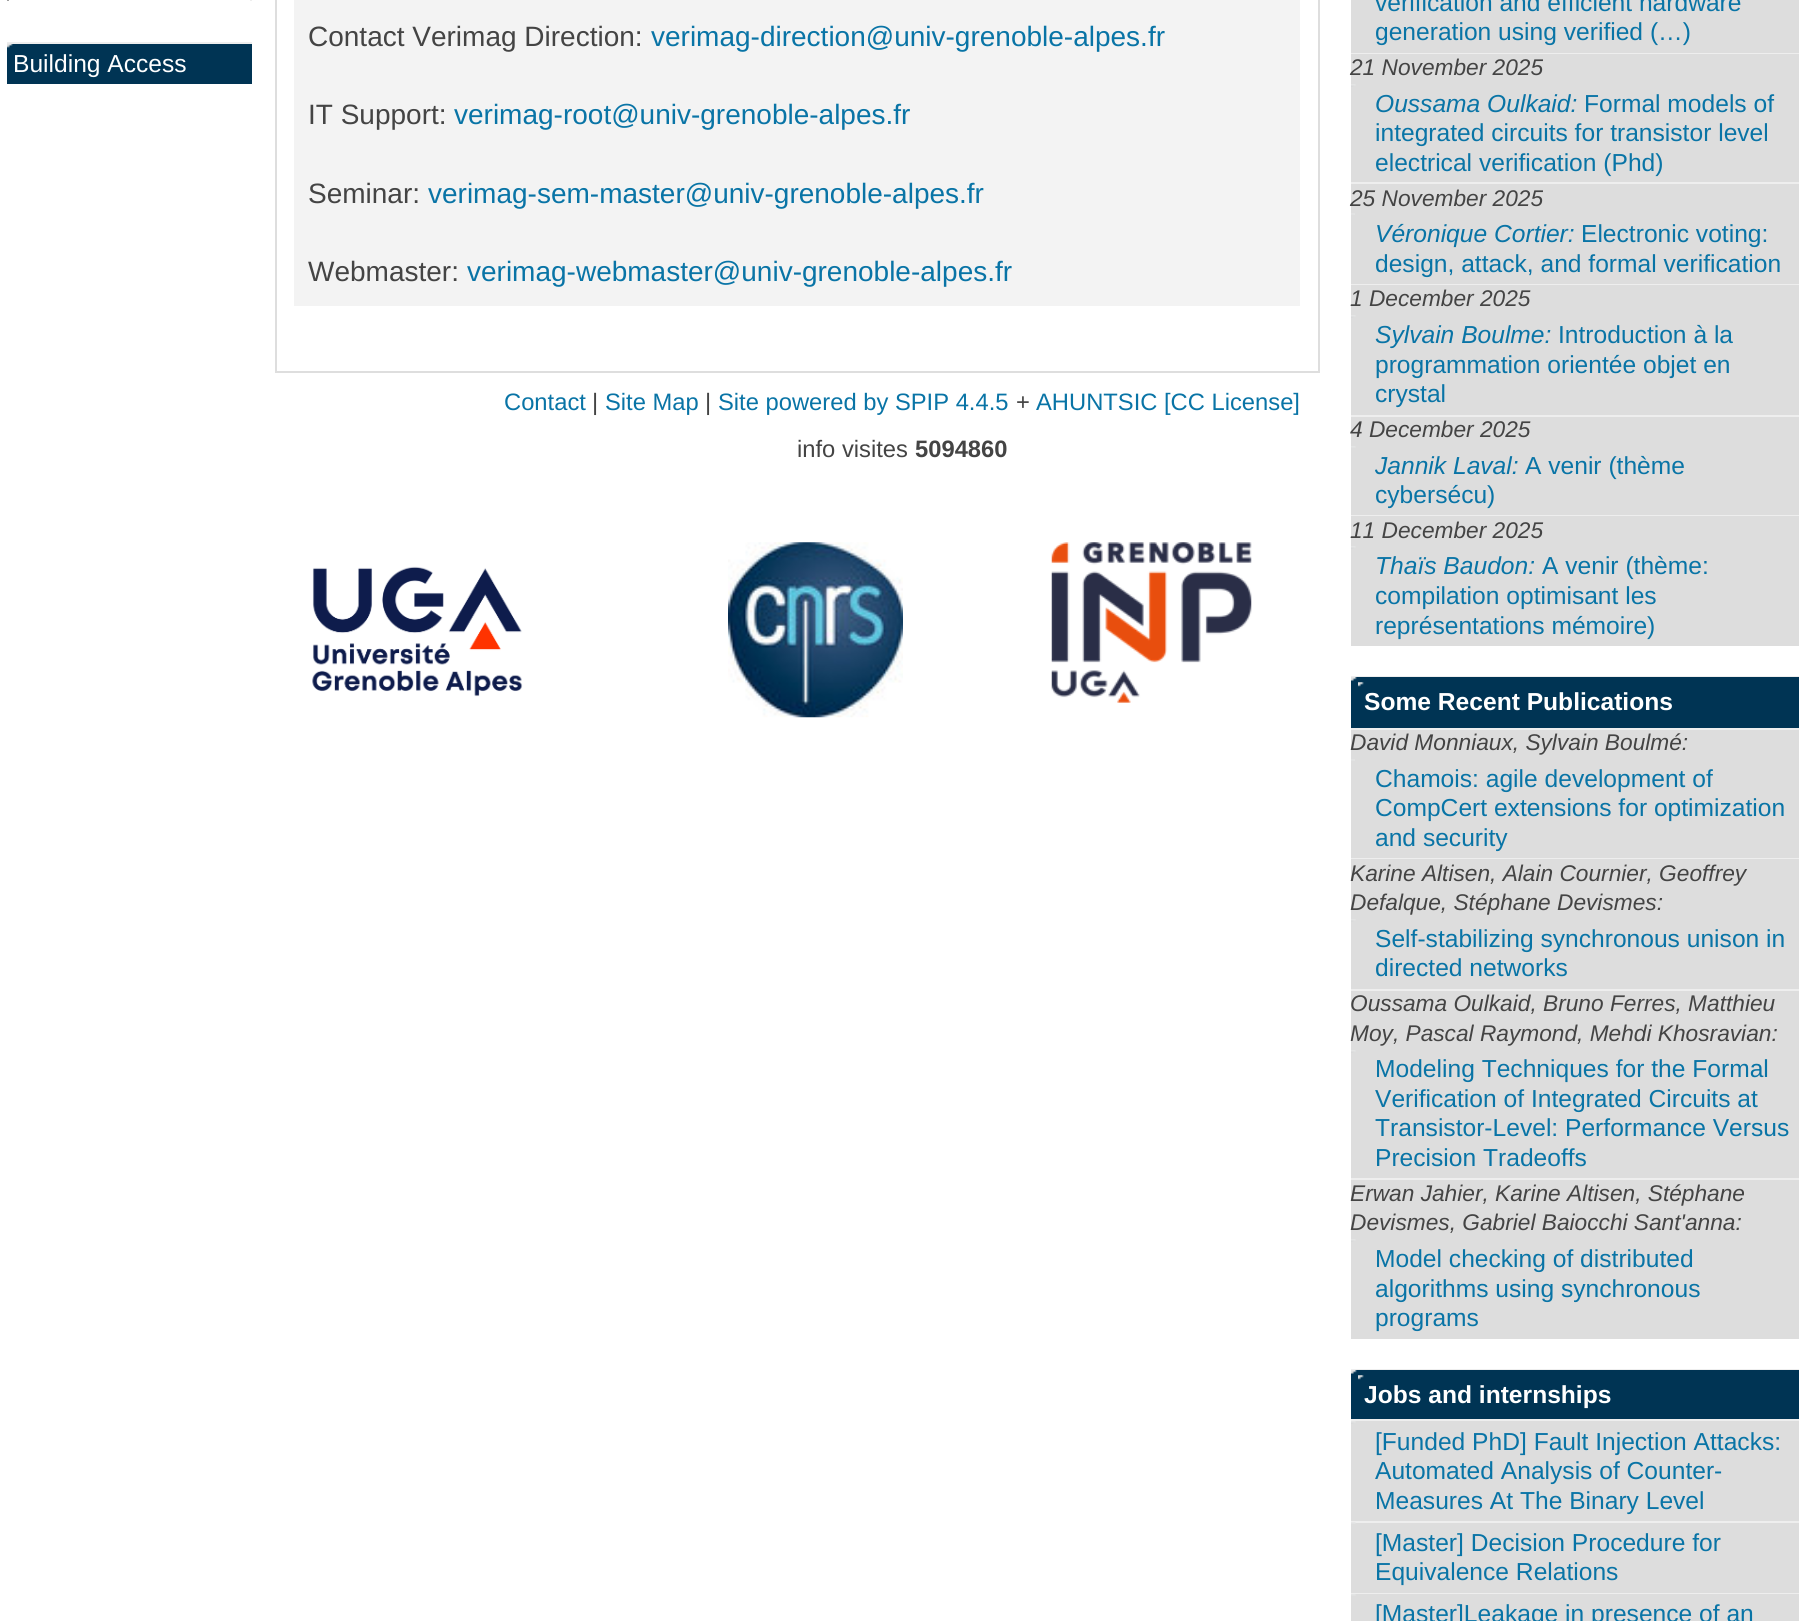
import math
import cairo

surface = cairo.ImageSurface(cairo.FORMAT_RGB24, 1804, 1621)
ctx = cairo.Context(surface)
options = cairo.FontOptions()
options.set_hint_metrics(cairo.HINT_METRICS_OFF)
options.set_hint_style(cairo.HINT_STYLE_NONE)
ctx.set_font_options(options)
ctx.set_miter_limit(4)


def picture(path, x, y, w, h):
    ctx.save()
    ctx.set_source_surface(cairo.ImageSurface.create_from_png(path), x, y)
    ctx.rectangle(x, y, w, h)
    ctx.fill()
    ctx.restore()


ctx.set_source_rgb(1, 1, 1)
ctx.paint()
ctx.set_source_rgb(0.933, 0.933, 0.933)
ctx.rectangle(250, 0, 2, 1)
ctx.fill()
ctx.set_source_rgb(0.624, 0.624, 0.624)
ctx.rectangle(7, 0, 2, 1)
ctx.fill()
ctx.set_source_rgb(0.933, 0.933, 0.933)
ctx.rectangle(7, 42, 245, 2)
ctx.fill()
ctx.set_source_rgb(0, 0.204, 0.329)
ctx.rectangle(7, 44, 245, 40)
ctx.fill()
picture("img1.png", 7, 43, 6, 5)
ctx.select_font_face("Liberation Sans")
ctx.set_font_size(24.6)
ctx.set_source_rgb(1, 1, 1)
ctx.move_to(13, 72)
ctx.show_text("Building Access")
ctx.rectangle(276, -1, 1043, 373)
ctx.set_source_rgb(0.871, 0.871, 0.871)
ctx.stroke()
ctx.set_source_rgb(0.953, 0.953, 0.953)
ctx.rectangle(294, 0, 1006, 306)
ctx.fill()
ctx.set_font_size(28)
ctx.set_source_rgb(0.267, 0.267, 0.267)
ctx.move_to(308, 46)
ctx.show_text("Contact Verimag Direction:")
ctx.set_source_rgb(0.039, 0.455, 0.651)
ctx.move_to(651, 46)
ctx.show_text("verimag-direction@univ-grenoble-alpes.fr")
ctx.set_source_rgb(0.267, 0.267, 0.267)
ctx.move_to(308, 124)
ctx.show_text("IT Support:")
ctx.set_source_rgb(0.039, 0.455, 0.651)
ctx.move_to(454, 124)
ctx.show_text("verimag-root@univ-grenoble-alpes.fr")
ctx.set_source_rgb(0.267, 0.267, 0.267)
ctx.move_to(308, 203)
ctx.show_text("Seminar:")
ctx.set_source_rgb(0.039, 0.455, 0.651)
ctx.move_to(428, 203)
ctx.show_text("verimag-sem-master@univ-grenoble-alpes.fr")
ctx.set_source_rgb(0.267, 0.267, 0.267)
ctx.move_to(308, 281)
ctx.show_text("Webmaster:")
ctx.set_source_rgb(0.039, 0.455, 0.651)
ctx.move_to(467, 281)
ctx.show_text("verimag-webmaster@univ-grenoble-alpes.fr")
ctx.set_source_rgb(0.867, 0.867, 0.867)
ctx.rectangle(1351, 0, 448, 53)
ctx.fill()
ctx.set_font_size(24.6)
ctx.set_source_rgb(0.039, 0.455, 0.651)
ctx.move_to(1375, 11)
ctx.show_text("verification and efficient hardware")
ctx.move_to(1375, 40)
ctx.show_text("generation using verified (…)")
ctx.set_source_rgb(0.933, 0.933, 0.933)
ctx.rectangle(1351, 53, 448, 1)
ctx.fill()
ctx.set_source_rgb(0.867, 0.867, 0.867)
ctx.rectangle(1351, 54, 448, 128)
ctx.fill()
ctx.select_font_face("Liberation Sans", cairo.FONT_SLANT_ITALIC)
ctx.set_font_size(22.7)
ctx.set_source_rgb(0.267, 0.267, 0.267)
ctx.move_to(1350, 75)
ctx.show_text("21 November 2025")
picture("img2.png", 1351, 84, 5, 3)
ctx.set_font_size(24.6)
ctx.set_source_rgb(0.039, 0.455, 0.651)
ctx.move_to(1375, 112)
ctx.show_text("Oussama Oulkaid:")
ctx.select_font_face("Liberation Sans")
ctx.move_to(1584, 112)
ctx.show_text("Formal models of")
ctx.move_to(1375, 141)
ctx.show_text("integrated circuits for transistor level")
ctx.move_to(1375, 171)
ctx.show_text("electrical verification (Phd)")
ctx.set_source_rgb(0.933, 0.933, 0.933)
ctx.rectangle(1351, 182, 448, 2)
ctx.fill()
ctx.set_source_rgb(0.867, 0.867, 0.867)
ctx.rectangle(1351, 184, 448, 100)
ctx.fill()
ctx.select_font_face("Liberation Sans", cairo.FONT_SLANT_ITALIC)
ctx.set_font_size(22.7)
ctx.set_source_rgb(0.267, 0.267, 0.267)
ctx.move_to(1350, 206)
ctx.show_text("25 November 2025")
picture("img3.png", 1351, 213, 4, 2)
ctx.set_font_size(24.6)
ctx.set_source_rgb(0.039, 0.455, 0.651)
ctx.move_to(1375, 242)
ctx.show_text("Véronique Cortier:")
ctx.select_font_face("Liberation Sans")
ctx.move_to(1581, 242)
ctx.show_text("Electronic voting:")
ctx.move_to(1375, 272)
ctx.show_text("design, attack, and formal verification")
ctx.set_source_rgb(0.933, 0.933, 0.933)
ctx.rectangle(1351, 284, 448, 1)
ctx.fill()
ctx.set_source_rgb(0.867, 0.867, 0.867)
ctx.rectangle(1351, 285, 448, 130)
ctx.fill()
ctx.select_font_face("Liberation Sans", cairo.FONT_SLANT_ITALIC)
ctx.set_font_size(22.7)
ctx.set_source_rgb(0.267, 0.267, 0.267)
ctx.move_to(1350, 306)
ctx.show_text("1 December 2025")
picture("img2.png", 1351, 315, 5, 3)
ctx.set_font_size(24.6)
ctx.set_source_rgb(0.039, 0.455, 0.651)
ctx.move_to(1375, 343)
ctx.show_text("Sylvain Boulme:")
ctx.select_font_face("Liberation Sans")
ctx.move_to(1558, 343)
ctx.show_text("Introduction à la")
ctx.move_to(1375, 373)
ctx.show_text("programmation orientée objet en")
ctx.move_to(1375, 402)
ctx.show_text("crystal")
ctx.set_source_rgb(0.933, 0.933, 0.933)
ctx.rectangle(1351, 415, 448, 2)
ctx.fill()
ctx.set_source_rgb(0.867, 0.867, 0.867)
ctx.rectangle(1351, 417, 448, 98)
ctx.fill()
ctx.select_font_face("Liberation Sans", cairo.FONT_SLANT_ITALIC)
ctx.set_font_size(22.7)
ctx.set_source_rgb(0.267, 0.267, 0.267)
ctx.move_to(1350, 437)
ctx.show_text("4 December 2025")
picture("img4.png", 1351, 446, 5, 2)
ctx.set_font_size(24.6)
ctx.set_source_rgb(0.039, 0.455, 0.651)
ctx.move_to(1375, 474)
ctx.show_text("Jannik Laval:")
ctx.select_font_face("Liberation Sans")
ctx.move_to(1525, 474)
ctx.show_text("A venir (thème")
ctx.move_to(1375, 503)
ctx.show_text("cybersécu)")
ctx.set_source_rgb(0.933, 0.933, 0.933)
ctx.rectangle(1351, 515, 448, 1)
ctx.fill()
ctx.set_source_rgb(0.867, 0.867, 0.867)
ctx.rectangle(1351, 516, 448, 130)
ctx.fill()
ctx.select_font_face("Liberation Sans", cairo.FONT_SLANT_ITALIC)
ctx.set_font_size(22.7)
ctx.set_source_rgb(0.267, 0.267, 0.267)
ctx.move_to(1350, 538)
ctx.show_text("11 December 2025")
picture("img2.png", 1351, 546, 5, 3)
ctx.set_font_size(24.6)
ctx.set_source_rgb(0.039, 0.455, 0.651)
ctx.move_to(1375, 574)
ctx.show_text("Thaïs Baudon:")
ctx.select_font_face("Liberation Sans")
ctx.move_to(1542, 574)
ctx.show_text("A venir (thème:")
ctx.move_to(1375, 604)
ctx.show_text("compilation optimisant les")
ctx.move_to(1375, 634)
ctx.show_text("représentations mémoire)")
ctx.set_source_rgb(0.933, 0.933, 0.933)
ctx.rectangle(1351, 676, 448, 1)
ctx.fill()
ctx.set_source_rgb(0, 0.204, 0.329)
ctx.rectangle(1351, 677, 448, 51)
ctx.fill()
picture("img5.png", 1351, 677, 6, 4)
picture("img6.png", 1358, 682, 6, 5)
ctx.select_font_face("Liberation Sans", cairo.FONT_SLANT_NORMAL, cairo.FONT_WEIGHT_BOLD)
ctx.set_source_rgb(1, 1, 1)
ctx.move_to(1364, 710)
ctx.show_text("Some Recent Publications")
ctx.set_source_rgb(0.933, 0.933, 0.933)
ctx.rectangle(1351, 728, 448, 2)
ctx.fill()
ctx.set_source_rgb(0.867, 0.867, 0.867)
ctx.rectangle(1351, 730, 448, 128)
ctx.fill()
ctx.select_font_face("Liberation Sans", cairo.FONT_SLANT_ITALIC)
ctx.set_font_size(22.7)
ctx.set_source_rgb(0.267, 0.267, 0.267)
ctx.move_to(1350, 750)
ctx.show_text("David Monniaux, Sylvain Boulmé:")
picture("img3.png", 1351, 759, 4, 2)
ctx.select_font_face("Liberation Sans")
ctx.set_font_size(24.6)
ctx.set_source_rgb(0.039, 0.455, 0.651)
ctx.move_to(1375, 787)
ctx.show_text("Chamois: agile development of")
ctx.move_to(1375, 816)
ctx.show_text("CompCert extensions for optimization")
ctx.move_to(1375, 846)
ctx.show_text("and security")
ctx.set_source_rgb(0.933, 0.933, 0.933)
ctx.rectangle(1351, 858, 448, 1)
ctx.fill()
ctx.set_source_rgb(0.867, 0.867, 0.867)
ctx.rectangle(1351, 859, 448, 130)
ctx.fill()
ctx.select_font_face("Liberation Sans", cairo.FONT_SLANT_ITALIC)
ctx.set_font_size(22.7)
ctx.set_source_rgb(0.267, 0.267, 0.267)
ctx.move_to(1350, 881)
ctx.show_text("Karine Altisen, Alain Cournier, Geoffrey")
ctx.move_to(1350, 910)
ctx.show_text("Defalque, Stéphane Devismes:")
picture("img7.png", 1351, 919, 5, 3)
ctx.select_font_face("Liberation Sans")
ctx.set_font_size(24.6)
ctx.set_source_rgb(0.039, 0.455, 0.651)
ctx.move_to(1375, 947)
ctx.show_text("Self-stabilizing synchronous unison in")
ctx.move_to(1375, 976)
ctx.show_text("directed networks")
ctx.set_source_rgb(0.933, 0.933, 0.933)
ctx.rectangle(1351, 989, 448, 2)
ctx.fill()
ctx.set_source_rgb(0.867, 0.867, 0.867)
ctx.rectangle(1351, 991, 448, 187)
ctx.fill()
ctx.select_font_face("Liberation Sans", cairo.FONT_SLANT_ITALIC)
ctx.set_font_size(22.7)
ctx.set_source_rgb(0.267, 0.267, 0.267)
ctx.move_to(1350, 1011)
ctx.show_text("Oussama Oulkaid, Bruno Ferres, Matthieu")
ctx.move_to(1350, 1041)
ctx.show_text("Moy, Pascal Raymond, Mehdi Khosravian:")
picture("img2.png", 1351, 1050, 5, 3)
ctx.select_font_face("Liberation Sans")
ctx.set_font_size(24.6)
ctx.set_source_rgb(0.039, 0.455, 0.651)
ctx.move_to(1375, 1077)
ctx.show_text("Modeling Techniques for the Formal")
ctx.move_to(1375, 1107)
ctx.show_text("Verification of Integrated Circuits at")
ctx.move_to(1375, 1136)
ctx.show_text("Transistor-Level: Performance Versus")
ctx.move_to(1375, 1166)
ctx.show_text("Precision Tradeoffs")
ctx.set_source_rgb(0.933, 0.933, 0.933)
ctx.rectangle(1351, 1178, 448, 2)
ctx.fill()
ctx.set_source_rgb(0.867, 0.867, 0.867)
ctx.rectangle(1351, 1180, 448, 159)
ctx.fill()
ctx.select_font_face("Liberation Sans", cairo.FONT_SLANT_ITALIC)
ctx.set_font_size(22.7)
ctx.set_source_rgb(0.267, 0.267, 0.267)
ctx.move_to(1350, 1201)
ctx.show_text("Erwan Jahier, Karine Altisen, Stéphane")
ctx.move_to(1350, 1230)
ctx.show_text("Devismes, Gabriel Baiocchi Sant'anna:")
picture("img2.png", 1351, 1239, 5, 3)
ctx.select_font_face("Liberation Sans")
ctx.set_font_size(24.6)
ctx.set_source_rgb(0.039, 0.455, 0.651)
ctx.move_to(1375, 1267)
ctx.show_text("Model checking of distributed")
ctx.move_to(1375, 1297)
ctx.show_text("algorithms using synchronous")
ctx.move_to(1375, 1326)
ctx.show_text("programs")
ctx.set_source_rgb(0.933, 0.933, 0.933)
ctx.rectangle(1351, 1369, 448, 1)
ctx.fill()
ctx.set_source_rgb(0, 0.204, 0.329)
ctx.rectangle(1351, 1370, 448, 49)
ctx.fill()
picture("img5.png", 1351, 1370, 6, 4)
picture("img6.png", 1358, 1375, 6, 5)
ctx.select_font_face("Liberation Sans", cairo.FONT_SLANT_NORMAL, cairo.FONT_WEIGHT_BOLD)
ctx.set_source_rgb(1, 1, 1)
ctx.move_to(1364, 1403)
ctx.show_text("Jobs and internships")
ctx.set_source_rgb(0.933, 0.933, 0.933)
ctx.rectangle(1351, 1419, 448, 2)
ctx.fill()
ctx.set_source_rgb(0.867, 0.867, 0.867)
ctx.rectangle(1351, 1421, 448, 100)
ctx.fill()
picture("img2.png", 1351, 1421, 5, 3)
ctx.select_font_face("Liberation Sans")
ctx.set_source_rgb(0.039, 0.455, 0.651)
ctx.move_to(1375, 1450)
ctx.show_text("[Funded PhD] Fault Injection Attacks:")
ctx.move_to(1375, 1479)
ctx.show_text("Automated Analysis of Counter-")
ctx.move_to(1375, 1509)
ctx.show_text("Measures At The Binary Level")
ctx.set_source_rgb(0.933, 0.933, 0.933)
ctx.rectangle(1351, 1521, 448, 2)
ctx.fill()
ctx.set_source_rgb(0.867, 0.867, 0.867)
ctx.rectangle(1351, 1523, 448, 70)
ctx.fill()
picture("img8.png", 1351, 1522, 5, 2)
ctx.set_source_rgb(0.039, 0.455, 0.651)
ctx.move_to(1375, 1551)
ctx.show_text("[Master] Decision Procedure for")
ctx.move_to(1375, 1580)
ctx.show_text("Equivalence Relations")
ctx.set_source_rgb(0.933, 0.933, 0.933)
ctx.rectangle(1351, 1593, 448, 1)
ctx.fill()
ctx.set_source_rgb(0.867, 0.867, 0.867)
ctx.rectangle(1351, 1594, 448, 27)
ctx.fill()
picture("img4.png", 1351, 1594, 5, 2)
ctx.set_source_rgb(0.039, 0.455, 0.651)
ctx.move_to(1375, 1622)
ctx.show_text("[Master]Leakage in presence of an")
ctx.set_font_size(23.75)
ctx.move_to(504, 410)
ctx.show_text("Contact")
ctx.set_source_rgb(0.267, 0.267, 0.267)
ctx.move_to(592, 410)
ctx.show_text("|")
ctx.set_source_rgb(0.039, 0.455, 0.651)
ctx.move_to(605, 410)
ctx.show_text("Site Map")
ctx.set_source_rgb(0.267, 0.267, 0.267)
ctx.move_to(705, 410)
ctx.show_text("|")
ctx.set_source_rgb(0.039, 0.455, 0.651)
ctx.move_to(718, 410)
ctx.show_text("Site powered by SPIP 4.4.5")
ctx.set_source_rgb(0.267, 0.267, 0.267)
ctx.move_to(1016, 410)
ctx.show_text("+")
ctx.set_source_rgb(0.039, 0.455, 0.651)
ctx.move_to(1036, 410)
ctx.show_text("AHUNTSIC [CC License]")
ctx.set_source_rgb(0.267, 0.267, 0.267)
ctx.move_to(797, 457)
ctx.show_text("info visites")
ctx.select_font_face("Liberation Sans", cairo.FONT_SLANT_NORMAL, cairo.FONT_WEIGHT_BOLD)
ctx.move_to(915, 457)
ctx.show_text("5094860")
picture("img9.png", 312, 566, 211, 131)
picture("img10.png", 728, 542, 175, 176)
picture("img11.png", 1051, 542, 201, 161)
surface.write_to_png("page.png")
